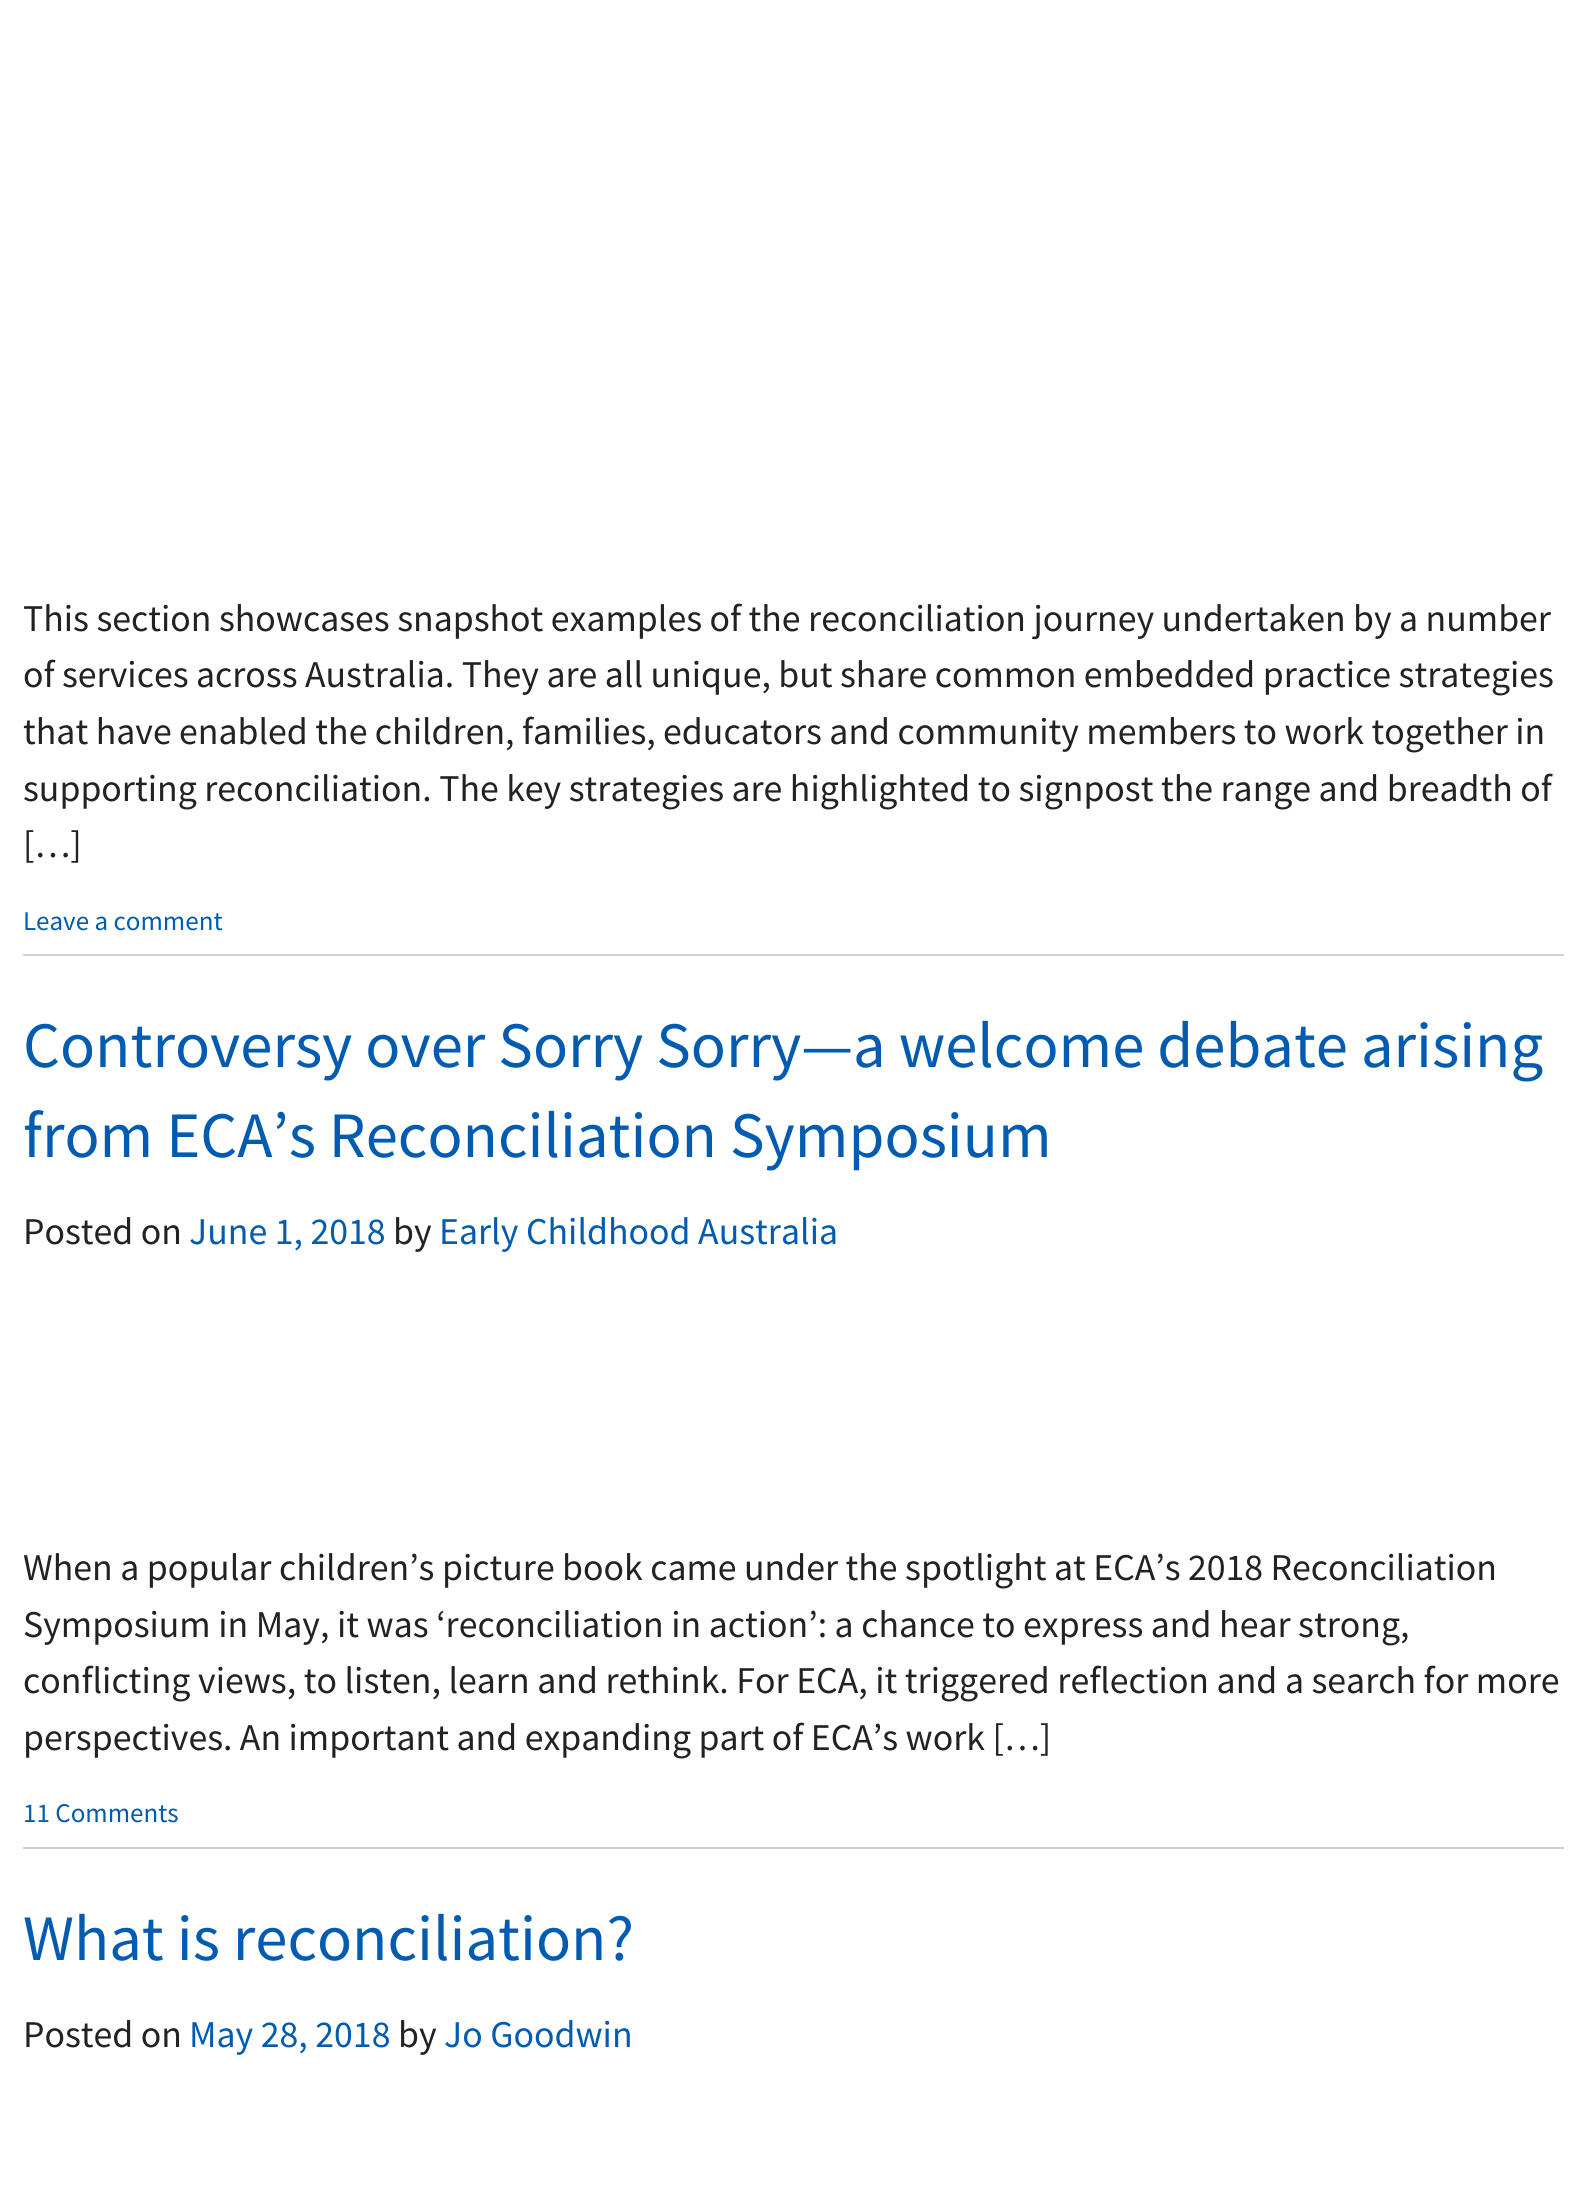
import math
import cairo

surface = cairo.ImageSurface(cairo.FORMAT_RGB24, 1586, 2200)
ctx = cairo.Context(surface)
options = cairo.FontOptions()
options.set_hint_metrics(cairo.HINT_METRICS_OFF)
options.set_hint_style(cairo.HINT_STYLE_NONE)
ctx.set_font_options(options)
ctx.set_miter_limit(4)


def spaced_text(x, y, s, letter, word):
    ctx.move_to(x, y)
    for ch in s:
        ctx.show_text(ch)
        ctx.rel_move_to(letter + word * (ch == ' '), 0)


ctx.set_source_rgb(1, 1, 1)
ctx.paint()
ctx.set_source_rgb(0.816, 0.816, 0.816)
ctx.rectangle(23, 954, 1541, 2)
ctx.fill()
ctx.select_font_face("Source Sans Pro")
ctx.set_font_size(37.8)
ctx.set_source_rgb(0.133, 0.133, 0.133)
spaced_text(23, 631, "This section showcases snapshot examples of the reconciliation journey undertaken by a number", 0, -0.1)
spaced_text(23, 687, "of services across Australia. They are all unique, but share common embedded practice strategies", 0, -0.1)
spaced_text(23, 744, "that have enabled the children, families, educators and community members to work together in", 0, -0.1)
spaced_text(23, 801, "supporting reconciliation. The key strategies are highlighted to signpost the range and breadth of", 0, -0.1)
ctx.move_to(23, 857)
ctx.show_text("[…]")
ctx.set_font_size(27)
ctx.set_source_rgb(0.004, 0.357, 0.694)
ctx.move_to(23, 930)
ctx.show_text("Leave a comment")
ctx.set_source_rgb(0.816, 0.816, 0.816)
ctx.rectangle(23, 1847, 1541, 2)
ctx.fill()
ctx.set_font_size(64.8)
ctx.set_source_rgb(0.004, 0.357, 0.694)
ctx.move_to(23, 1067)
ctx.show_text("Controversy over Sorry Sorry—a welcome debate arising")
ctx.move_to(23, 1157)
ctx.show_text("from ECA’s Reconciliation Symposium")
ctx.set_font_size(37.8)
ctx.set_source_rgb(0.133, 0.133, 0.133)
ctx.move_to(23, 1244)
ctx.show_text("Posted on")
ctx.set_source_rgb(0.004, 0.357, 0.694)
ctx.move_to(189, 1244)
ctx.show_text("June 1, 2018")
ctx.set_source_rgb(0.133, 0.133, 0.133)
ctx.move_to(393, 1244)
ctx.show_text("by")
ctx.set_source_rgb(0.004, 0.357, 0.694)
ctx.move_to(439, 1244)
ctx.show_text("Early Childhood Australia")
ctx.set_source_rgb(0.133, 0.133, 0.133)
spaced_text(23, 1580, "When a popular children’s picture book came under the spotlight at ECA’s 2018 Reconciliation", 0, -0.1)
ctx.move_to(23, 1637)
ctx.show_text("Symposium in May, it was ‘reconciliation in action’: a chance to express and hear strong,")
ctx.move_to(23, 1693)
ctx.show_text("conflicting views, to listen, learn and rethink. For ECA, it triggered reflection and a search for more")
spaced_text(23, 1750, "perspectives. An important and expanding part of ECA’s work […]", 0, -0.1)
ctx.set_font_size(27)
ctx.set_source_rgb(0.004, 0.357, 0.694)
ctx.move_to(23, 1822)
ctx.show_text("11 Comments")
ctx.set_font_size(64.8)
ctx.move_to(23, 1960)
ctx.show_text("What is reconciliation?")
ctx.set_font_size(37.8)
ctx.set_source_rgb(0.133, 0.133, 0.133)
ctx.move_to(23, 2047)
ctx.show_text("Posted on")
ctx.set_source_rgb(0.004, 0.357, 0.694)
ctx.move_to(189, 2047)
ctx.show_text("May 28, 2018")
ctx.set_source_rgb(0.133, 0.133, 0.133)
ctx.move_to(398, 2047)
ctx.show_text("by")
ctx.set_source_rgb(0.004, 0.357, 0.694)
ctx.move_to(444, 2047)
ctx.show_text("Jo Goodwin")
surface.write_to_png("page.png")
